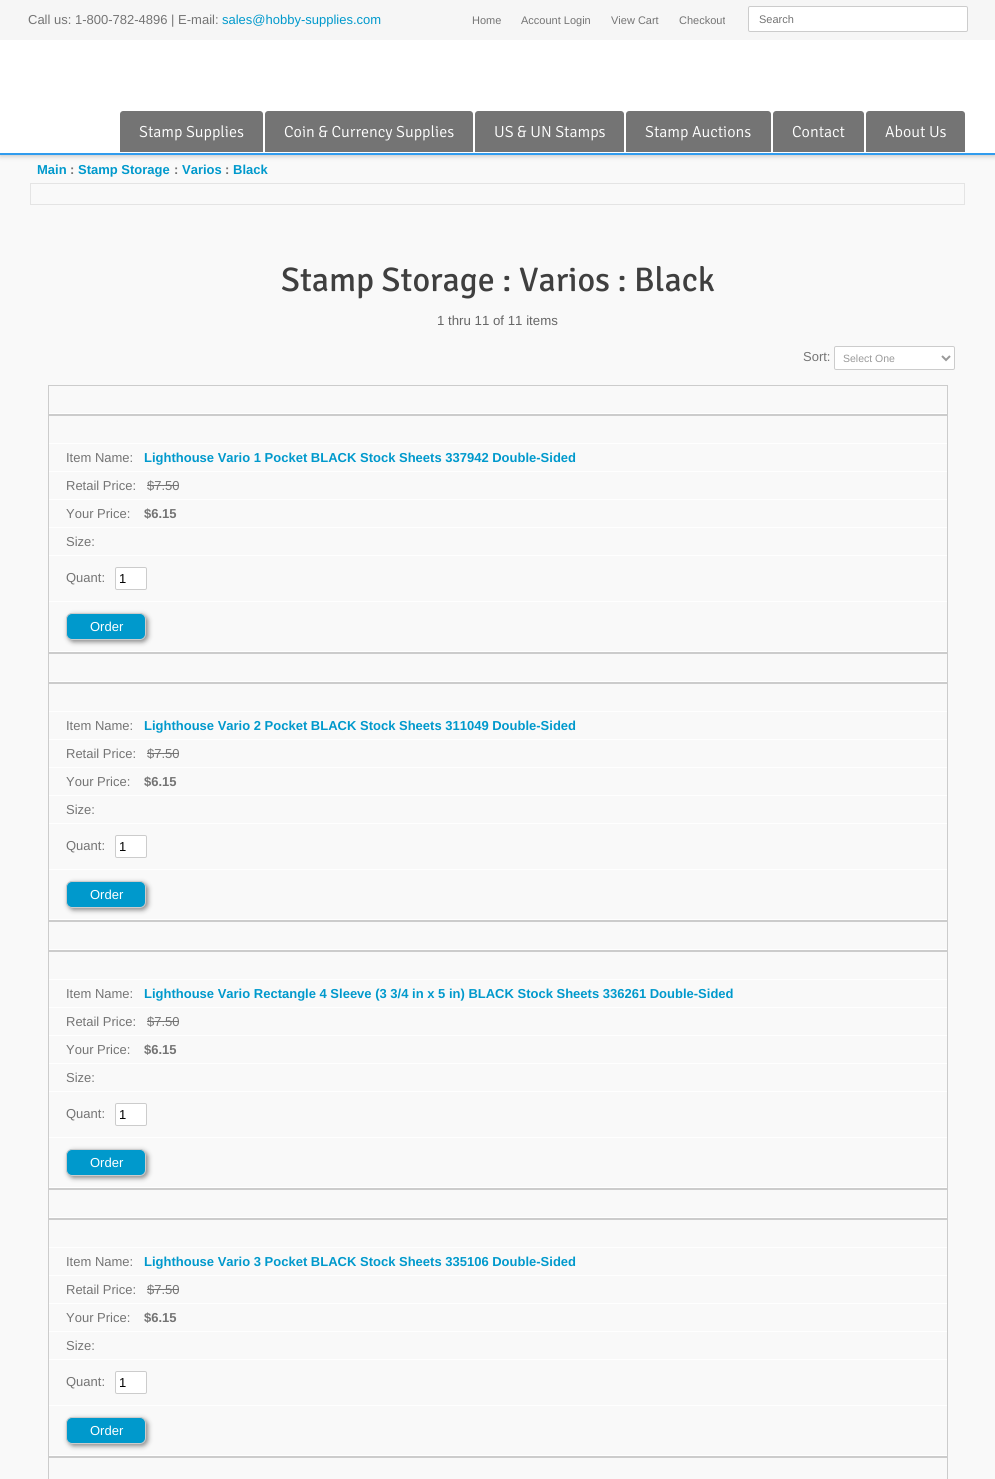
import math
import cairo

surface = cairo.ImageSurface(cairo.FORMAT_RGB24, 995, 1479)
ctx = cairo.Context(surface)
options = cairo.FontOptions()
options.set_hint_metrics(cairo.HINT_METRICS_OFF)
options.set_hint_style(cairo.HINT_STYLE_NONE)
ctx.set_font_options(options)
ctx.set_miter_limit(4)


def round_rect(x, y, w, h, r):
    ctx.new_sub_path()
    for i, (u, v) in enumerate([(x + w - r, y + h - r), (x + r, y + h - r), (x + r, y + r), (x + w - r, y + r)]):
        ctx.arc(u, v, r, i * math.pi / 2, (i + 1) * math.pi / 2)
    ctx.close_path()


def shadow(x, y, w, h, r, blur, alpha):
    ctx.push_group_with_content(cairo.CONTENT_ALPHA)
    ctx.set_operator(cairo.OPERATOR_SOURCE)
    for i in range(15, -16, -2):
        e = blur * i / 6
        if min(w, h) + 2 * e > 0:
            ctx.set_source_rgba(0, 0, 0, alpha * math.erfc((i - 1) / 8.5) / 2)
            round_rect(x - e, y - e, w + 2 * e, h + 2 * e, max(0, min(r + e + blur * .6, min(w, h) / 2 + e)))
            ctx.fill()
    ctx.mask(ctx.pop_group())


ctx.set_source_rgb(0.976, 0.976, 0.976)
ctx.paint()
ctx.set_source_rgb(0, 0, 0)
shadow(0, 0, 995, 155, 0, 3, 0.3)
ctx.set_source_rgb(1, 1, 1)
ctx.rectangle(0, 40, 995, 113)
ctx.fill()
ctx.set_source_rgb(0.192, 0.612, 0.933)
ctx.rectangle(0, 153, 995, 2)
ctx.fill()
ctx.set_source_rgb(0.961, 0.961, 0.961)
ctx.rectangle(0, 0, 995, 40)
ctx.fill()
ctx.select_font_face("Liberation Sans")
ctx.set_font_size(13)
ctx.set_source_rgb(0.455, 0.455, 0.455)
ctx.move_to(28, 24)
ctx.show_text("Call us: 1-800-782-4896 | E-mail:")
ctx.set_source_rgb(0, 0.6, 0.8)
ctx.move_to(222, 24)
ctx.show_text("sales@hobby-supplies.com")
ctx.set_font_size(11)
ctx.set_source_rgb(0.455, 0.455, 0.455)
ctx.move_to(472, 24)
ctx.show_text("Home")
ctx.move_to(521, 24)
ctx.show_text("Account Login")
ctx.move_to(611, 24)
ctx.show_text("View Cart")
ctx.move_to(679, 24)
ctx.show_text("Checkout")
ctx.set_source_rgb(1, 1, 1)
round_rect(748.5, 6.5, 219, 25, 1.5)
ctx.fill_preserve()
ctx.set_source_rgb(0.8, 0.8, 0.8)
ctx.set_line_width(1)
ctx.stroke()
ctx.set_source_rgb(0.455, 0.455, 0.455)
ctx.move_to(759, 23)
ctx.show_text("Search")
ctx.new_path()
ctx.move_to(123, 111)
ctx.line_to(260, 111)
ctx.curve_to(261.5, 111, 263, 112.5, 263, 114)
ctx.line_to(263, 153)
ctx.line_to(120, 153)
ctx.line_to(120, 114)
ctx.curve_to(120, 112.5, 121.5, 111, 123, 111)
ctx.close_path()
ctx.fill()
ctx.set_source_rgb(1, 1, 1)
ctx.rectangle(120, 152, 143, 1)
ctx.fill()
ctx.select_font_face("Signika Light")
ctx.set_font_size(16)
ctx.move_to(139, 137)
ctx.show_text("Stamp Supplies")
ctx.set_source_rgb(0.455, 0.455, 0.455)
ctx.new_path()
ctx.move_to(268, 111)
ctx.line_to(470, 111)
ctx.curve_to(471.5, 111, 473, 112.5, 473, 114)
ctx.line_to(473, 153)
ctx.line_to(265, 153)
ctx.line_to(265, 114)
ctx.curve_to(265, 112.5, 266.5, 111, 268, 111)
ctx.close_path()
ctx.fill()
ctx.set_source_rgb(1, 1, 1)
ctx.rectangle(265, 152, 208, 1)
ctx.fill()
ctx.move_to(284, 137)
ctx.show_text("Coin & Currency Supplies")
ctx.set_source_rgb(0.455, 0.455, 0.455)
ctx.new_path()
ctx.move_to(478, 111)
ctx.line_to(621, 111)
ctx.curve_to(622.5, 111, 624, 112.5, 624, 114)
ctx.line_to(624, 153)
ctx.line_to(475, 153)
ctx.line_to(475, 114)
ctx.curve_to(475, 112.5, 476.5, 111, 478, 111)
ctx.close_path()
ctx.fill()
ctx.set_source_rgb(1, 1, 1)
ctx.rectangle(475, 152, 149, 1)
ctx.fill()
ctx.move_to(494, 137)
ctx.show_text("US & UN Stamps")
ctx.set_source_rgb(0.455, 0.455, 0.455)
ctx.new_path()
ctx.move_to(629, 111)
ctx.line_to(768, 111)
ctx.curve_to(769.5, 111, 771, 112.5, 771, 114)
ctx.line_to(771, 153)
ctx.line_to(626, 153)
ctx.line_to(626, 114)
ctx.curve_to(626, 112.5, 627.5, 111, 629, 111)
ctx.close_path()
ctx.fill()
ctx.set_source_rgb(1, 1, 1)
ctx.rectangle(626, 152, 145, 1)
ctx.fill()
ctx.move_to(645, 137)
ctx.show_text("Stamp Auctions")
ctx.set_source_rgb(0.455, 0.455, 0.455)
ctx.new_path()
ctx.move_to(776, 111)
ctx.line_to(861, 111)
ctx.curve_to(862.5, 111, 864, 112.5, 864, 114)
ctx.line_to(864, 153)
ctx.line_to(773, 153)
ctx.line_to(773, 114)
ctx.curve_to(773, 112.5, 774.5, 111, 776, 111)
ctx.close_path()
ctx.fill()
ctx.set_source_rgb(1, 1, 1)
ctx.rectangle(773, 152, 91, 1)
ctx.fill()
ctx.move_to(792, 137)
ctx.show_text("Contact")
ctx.set_source_rgb(0.455, 0.455, 0.455)
ctx.new_path()
ctx.move_to(869, 111)
ctx.line_to(962, 111)
ctx.curve_to(963.5, 111, 965, 112.5, 965, 114)
ctx.line_to(965, 153)
ctx.line_to(866, 153)
ctx.line_to(866, 114)
ctx.curve_to(866, 112.5, 867.5, 111, 869, 111)
ctx.close_path()
ctx.fill()
ctx.set_source_rgb(1, 1, 1)
ctx.rectangle(866, 152, 99, 1)
ctx.fill()
ctx.move_to(885, 137)
ctx.show_text("About Us")
ctx.select_font_face("Liberation Sans", cairo.FONT_SLANT_NORMAL, cairo.FONT_WEIGHT_BOLD)
ctx.set_font_size(13)
ctx.set_source_rgb(0, 0.6, 0.8)
ctx.move_to(37, 174)
ctx.show_text("Main")
ctx.set_source_rgb(0.455, 0.455, 0.455)
ctx.move_to(70, 174)
ctx.show_text(":")
ctx.set_source_rgb(0, 0.6, 0.8)
ctx.move_to(78, 174)
ctx.show_text("Stamp Storage")
ctx.set_source_rgb(0.455, 0.455, 0.455)
ctx.move_to(174, 174)
ctx.show_text(":")
ctx.set_source_rgb(0, 0.6, 0.8)
ctx.move_to(182, 174)
ctx.show_text("Varios")
ctx.set_source_rgb(0.455, 0.455, 0.455)
ctx.move_to(225, 174)
ctx.show_text(":")
ctx.set_source_rgb(0, 0.6, 0.8)
ctx.move_to(233, 174)
ctx.show_text("Black")
ctx.set_source_rgb(0.894, 0.894, 0.894)
ctx.rectangle(30, 183, 935, 1)
ctx.fill()
ctx.rectangle(964, 183, 1, 22)
ctx.fill()
ctx.rectangle(30, 204, 935, 1)
ctx.fill()
ctx.rectangle(30, 183, 1, 22)
ctx.fill()
ctx.select_font_face("Signika")
ctx.set_font_size(34)
ctx.set_source_rgb(0.247, 0.247, 0.247)
ctx.move_to(281, 291)
ctx.show_text("Stamp Storage : Varios : Black")
ctx.select_font_face("Liberation Sans")
ctx.set_font_size(13.25)
ctx.set_source_rgb(0.4, 0.4, 0.4)
ctx.move_to(437, 325)
ctx.show_text("1 thru 11 of 11 items")
ctx.set_font_size(13)
ctx.set_source_rgb(0.455, 0.455, 0.455)
ctx.move_to(803, 361)
ctx.show_text("Sort:")
ctx.set_source_rgb(1, 1, 1)
round_rect(834.5, 346.5, 120, 23, 1.5)
ctx.fill_preserve()
ctx.set_source_rgb(0.8, 0.8, 0.8)
ctx.stroke()
ctx.new_path()
ctx.move_to(942, 356)
ctx.line_to(946, 360)
ctx.line_to(950, 356)
ctx.set_source_rgb(0.6, 0.6, 0.6)
ctx.set_line_width(2)
ctx.stroke()
ctx.set_font_size(10.5)
ctx.move_to(843, 362)
ctx.show_text("Select One")
ctx.rectangle(48.5, 385.5, 899, 29)
ctx.set_source_rgb(0.8, 0.8, 0.8)
ctx.set_line_width(1)
ctx.stroke()
ctx.set_source_rgb(1, 1, 1)
ctx.rectangle(49, 413, 898, 1)
ctx.fill()
ctx.rectangle(48.5, 415.5, 899, 237)
ctx.set_source_rgb(0.8, 0.8, 0.8)
ctx.stroke()
ctx.set_source_rgb(1, 1, 1)
ctx.rectangle(49, 443, 898, 1)
ctx.fill()
ctx.rectangle(49, 471, 898, 1)
ctx.fill()
ctx.set_font_size(13)
ctx.set_source_rgb(0.455, 0.455, 0.455)
ctx.move_to(66, 462)
ctx.show_text("Item Name:")
ctx.select_font_face("Liberation Sans", cairo.FONT_SLANT_NORMAL, cairo.FONT_WEIGHT_BOLD)
ctx.set_source_rgb(0, 0.6, 0.8)
ctx.move_to(144, 462)
ctx.show_text("Lighthouse Vario 1 Pocket BLACK Stock Sheets 337942 Double-Sided")
ctx.set_source_rgb(1, 1, 1)
ctx.rectangle(49, 499, 898, 1)
ctx.fill()
ctx.select_font_face("Liberation Sans")
ctx.set_source_rgb(0.455, 0.455, 0.455)
ctx.move_to(66, 490)
ctx.show_text("Retail Price:")
ctx.move_to(147, 490)
ctx.show_text("$7.50")
ctx.rectangle(147, 485, 32, 1)
ctx.fill()
ctx.set_source_rgb(1, 1, 1)
ctx.rectangle(49, 527, 898, 1)
ctx.fill()
ctx.set_source_rgb(0.455, 0.455, 0.455)
ctx.move_to(66, 518)
ctx.show_text("Your Price:")
ctx.select_font_face("Liberation Sans", cairo.FONT_SLANT_NORMAL, cairo.FONT_WEIGHT_BOLD)
ctx.move_to(144, 518)
ctx.show_text("$6.15")
ctx.set_source_rgb(1, 1, 1)
ctx.rectangle(49, 555, 898, 1)
ctx.fill()
ctx.select_font_face("Liberation Sans")
ctx.set_source_rgb(0.455, 0.455, 0.455)
ctx.move_to(66, 546)
ctx.show_text("Size:")
ctx.set_source_rgb(1, 1, 1)
ctx.rectangle(49, 601, 898, 1)
ctx.fill()
ctx.set_source_rgb(0.455, 0.455, 0.455)
ctx.move_to(66, 582)
ctx.show_text("Quant:")
ctx.set_source_rgb(1, 1, 1)
round_rect(115.5, 567.5, 31, 22, 1.5)
ctx.fill_preserve()
ctx.set_source_rgb(0.8, 0.8, 0.8)
ctx.stroke()
ctx.set_source_rgb(0, 0, 0)
ctx.move_to(119, 583)
ctx.show_text("1")
ctx.set_source_rgb(1, 1, 1)
ctx.rectangle(49, 651, 898, 1)
ctx.fill()
ctx.set_source_rgb(0.533, 0.533, 0.533)
shadow(68, 615, 80, 27, 6, 2.5, 1)
ctx.set_source_rgb(0, 0.6, 0.8)
round_rect(66.5, 613.5, 79, 26, 5.5)
ctx.fill_preserve()
ctx.set_source_rgb(0.8, 0.8, 0.8)
ctx.stroke()
ctx.set_source_rgb(1, 1, 1)
ctx.move_to(90, 631)
ctx.show_text("Order")
ctx.rectangle(48.5, 653.5, 899, 29)
ctx.set_source_rgb(0.8, 0.8, 0.8)
ctx.stroke()
ctx.set_source_rgb(1, 1, 1)
ctx.rectangle(49, 681, 898, 1)
ctx.fill()
ctx.rectangle(48.5, 683.5, 899, 237)
ctx.set_source_rgb(0.8, 0.8, 0.8)
ctx.stroke()
ctx.set_source_rgb(1, 1, 1)
ctx.rectangle(49, 711, 898, 1)
ctx.fill()
ctx.rectangle(49, 739, 898, 1)
ctx.fill()
ctx.set_source_rgb(0.455, 0.455, 0.455)
ctx.move_to(66, 730)
ctx.show_text("Item Name:")
ctx.select_font_face("Liberation Sans", cairo.FONT_SLANT_NORMAL, cairo.FONT_WEIGHT_BOLD)
ctx.set_source_rgb(0, 0.6, 0.8)
ctx.move_to(144, 730)
ctx.show_text("Lighthouse Vario 2 Pocket BLACK Stock Sheets 311049 Double-Sided")
ctx.set_source_rgb(1, 1, 1)
ctx.rectangle(49, 767, 898, 1)
ctx.fill()
ctx.select_font_face("Liberation Sans")
ctx.set_source_rgb(0.455, 0.455, 0.455)
ctx.move_to(66, 758)
ctx.show_text("Retail Price:")
ctx.move_to(147, 758)
ctx.show_text("$7.50")
ctx.rectangle(147, 753, 32, 1)
ctx.fill()
ctx.set_source_rgb(1, 1, 1)
ctx.rectangle(49, 795, 898, 1)
ctx.fill()
ctx.set_source_rgb(0.455, 0.455, 0.455)
ctx.move_to(66, 786)
ctx.show_text("Your Price:")
ctx.select_font_face("Liberation Sans", cairo.FONT_SLANT_NORMAL, cairo.FONT_WEIGHT_BOLD)
ctx.move_to(144, 786)
ctx.show_text("$6.15")
ctx.set_source_rgb(1, 1, 1)
ctx.rectangle(49, 823, 898, 1)
ctx.fill()
ctx.select_font_face("Liberation Sans")
ctx.set_source_rgb(0.455, 0.455, 0.455)
ctx.move_to(66, 814)
ctx.show_text("Size:")
ctx.set_source_rgb(1, 1, 1)
ctx.rectangle(49, 869, 898, 1)
ctx.fill()
ctx.set_source_rgb(0.455, 0.455, 0.455)
ctx.move_to(66, 850)
ctx.show_text("Quant:")
ctx.set_source_rgb(1, 1, 1)
round_rect(115.5, 835.5, 31, 22, 1.5)
ctx.fill_preserve()
ctx.set_source_rgb(0.8, 0.8, 0.8)
ctx.stroke()
ctx.set_source_rgb(0, 0, 0)
ctx.move_to(119, 851)
ctx.show_text("1")
ctx.set_source_rgb(1, 1, 1)
ctx.rectangle(49, 919, 898, 1)
ctx.fill()
ctx.set_source_rgb(0.533, 0.533, 0.533)
shadow(68, 883, 80, 27, 6, 2.5, 1)
ctx.set_source_rgb(0, 0.6, 0.8)
round_rect(66.5, 881.5, 79, 26, 5.5)
ctx.fill_preserve()
ctx.set_source_rgb(0.8, 0.8, 0.8)
ctx.stroke()
ctx.set_source_rgb(1, 1, 1)
ctx.move_to(90, 899)
ctx.show_text("Order")
ctx.rectangle(48.5, 921.5, 899, 29)
ctx.set_source_rgb(0.8, 0.8, 0.8)
ctx.stroke()
ctx.set_source_rgb(1, 1, 1)
ctx.rectangle(49, 949, 898, 1)
ctx.fill()
ctx.rectangle(48.5, 951.5, 899, 237)
ctx.set_source_rgb(0.8, 0.8, 0.8)
ctx.stroke()
ctx.set_source_rgb(1, 1, 1)
ctx.rectangle(49, 979, 898, 1)
ctx.fill()
ctx.rectangle(49, 1007, 898, 1)
ctx.fill()
ctx.set_source_rgb(0.455, 0.455, 0.455)
ctx.move_to(66, 998)
ctx.show_text("Item Name:")
ctx.select_font_face("Liberation Sans", cairo.FONT_SLANT_NORMAL, cairo.FONT_WEIGHT_BOLD)
ctx.set_source_rgb(0, 0.6, 0.8)
ctx.move_to(144, 998)
ctx.show_text("Lighthouse Vario Rectangle 4 Sleeve (3 3/4 in x 5 in) BLACK Stock Sheets 336261 Double-Sided")
ctx.set_source_rgb(1, 1, 1)
ctx.rectangle(49, 1035, 898, 1)
ctx.fill()
ctx.select_font_face("Liberation Sans")
ctx.set_source_rgb(0.455, 0.455, 0.455)
ctx.move_to(66, 1026)
ctx.show_text("Retail Price:")
ctx.move_to(147, 1026)
ctx.show_text("$7.50")
ctx.rectangle(147, 1021, 32, 1)
ctx.fill()
ctx.set_source_rgb(1, 1, 1)
ctx.rectangle(49, 1063, 898, 1)
ctx.fill()
ctx.set_source_rgb(0.455, 0.455, 0.455)
ctx.move_to(66, 1054)
ctx.show_text("Your Price:")
ctx.select_font_face("Liberation Sans", cairo.FONT_SLANT_NORMAL, cairo.FONT_WEIGHT_BOLD)
ctx.move_to(144, 1054)
ctx.show_text("$6.15")
ctx.set_source_rgb(1, 1, 1)
ctx.rectangle(49, 1091, 898, 1)
ctx.fill()
ctx.select_font_face("Liberation Sans")
ctx.set_source_rgb(0.455, 0.455, 0.455)
ctx.move_to(66, 1082)
ctx.show_text("Size:")
ctx.set_source_rgb(1, 1, 1)
ctx.rectangle(49, 1137, 898, 1)
ctx.fill()
ctx.set_source_rgb(0.455, 0.455, 0.455)
ctx.move_to(66, 1118)
ctx.show_text("Quant:")
ctx.set_source_rgb(1, 1, 1)
round_rect(115.5, 1103.5, 31, 22, 1.5)
ctx.fill_preserve()
ctx.set_source_rgb(0.8, 0.8, 0.8)
ctx.stroke()
ctx.set_source_rgb(0, 0, 0)
ctx.move_to(119, 1119)
ctx.show_text("1")
ctx.set_source_rgb(1, 1, 1)
ctx.rectangle(49, 1187, 898, 1)
ctx.fill()
ctx.set_source_rgb(0.533, 0.533, 0.533)
shadow(68, 1151, 80, 27, 6, 2.5, 1)
ctx.set_source_rgb(0, 0.6, 0.8)
round_rect(66.5, 1149.5, 79, 26, 5.5)
ctx.fill_preserve()
ctx.set_source_rgb(0.8, 0.8, 0.8)
ctx.stroke()
ctx.set_source_rgb(1, 1, 1)
ctx.move_to(90, 1167)
ctx.show_text("Order")
ctx.rectangle(48.5, 1189.5, 899, 29)
ctx.set_source_rgb(0.8, 0.8, 0.8)
ctx.stroke()
ctx.set_source_rgb(1, 1, 1)
ctx.rectangle(49, 1217, 898, 1)
ctx.fill()
ctx.rectangle(48.5, 1219.5, 899, 237)
ctx.set_source_rgb(0.8, 0.8, 0.8)
ctx.stroke()
ctx.set_source_rgb(1, 1, 1)
ctx.rectangle(49, 1247, 898, 1)
ctx.fill()
ctx.rectangle(49, 1275, 898, 1)
ctx.fill()
ctx.set_source_rgb(0.455, 0.455, 0.455)
ctx.move_to(66, 1266)
ctx.show_text("Item Name:")
ctx.select_font_face("Liberation Sans", cairo.FONT_SLANT_NORMAL, cairo.FONT_WEIGHT_BOLD)
ctx.set_source_rgb(0, 0.6, 0.8)
ctx.move_to(144, 1266)
ctx.show_text("Lighthouse Vario 3 Pocket BLACK Stock Sheets 335106 Double-Sided")
ctx.set_source_rgb(1, 1, 1)
ctx.rectangle(49, 1303, 898, 1)
ctx.fill()
ctx.select_font_face("Liberation Sans")
ctx.set_source_rgb(0.455, 0.455, 0.455)
ctx.move_to(66, 1294)
ctx.show_text("Retail Price:")
ctx.move_to(147, 1294)
ctx.show_text("$7.50")
ctx.rectangle(147, 1289, 32, 1)
ctx.fill()
ctx.set_source_rgb(1, 1, 1)
ctx.rectangle(49, 1331, 898, 1)
ctx.fill()
ctx.set_source_rgb(0.455, 0.455, 0.455)
ctx.move_to(66, 1322)
ctx.show_text("Your Price:")
ctx.select_font_face("Liberation Sans", cairo.FONT_SLANT_NORMAL, cairo.FONT_WEIGHT_BOLD)
ctx.move_to(144, 1322)
ctx.show_text("$6.15")
ctx.set_source_rgb(1, 1, 1)
ctx.rectangle(49, 1359, 898, 1)
ctx.fill()
ctx.select_font_face("Liberation Sans")
ctx.set_source_rgb(0.455, 0.455, 0.455)
ctx.move_to(66, 1350)
ctx.show_text("Size:")
ctx.set_source_rgb(1, 1, 1)
ctx.rectangle(49, 1405, 898, 1)
ctx.fill()
ctx.set_source_rgb(0.455, 0.455, 0.455)
ctx.move_to(66, 1386)
ctx.show_text("Quant:")
ctx.set_source_rgb(1, 1, 1)
round_rect(115.5, 1371.5, 31, 22, 1.5)
ctx.fill_preserve()
ctx.set_source_rgb(0.8, 0.8, 0.8)
ctx.stroke()
ctx.set_source_rgb(0, 0, 0)
ctx.move_to(119, 1387)
ctx.show_text("1")
ctx.set_source_rgb(1, 1, 1)
ctx.rectangle(49, 1455, 898, 1)
ctx.fill()
ctx.set_source_rgb(0.533, 0.533, 0.533)
shadow(68, 1419, 80, 27, 6, 2.5, 1)
ctx.set_source_rgb(0, 0.6, 0.8)
round_rect(66.5, 1417.5, 79, 26, 5.5)
ctx.fill_preserve()
ctx.set_source_rgb(0.8, 0.8, 0.8)
ctx.stroke()
ctx.set_source_rgb(1, 1, 1)
ctx.move_to(90, 1435)
ctx.show_text("Order")
ctx.rectangle(48.5, 1457.5, 899, 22)
ctx.set_source_rgb(0.8, 0.8, 0.8)
ctx.stroke()
surface.write_to_png("page.png")
